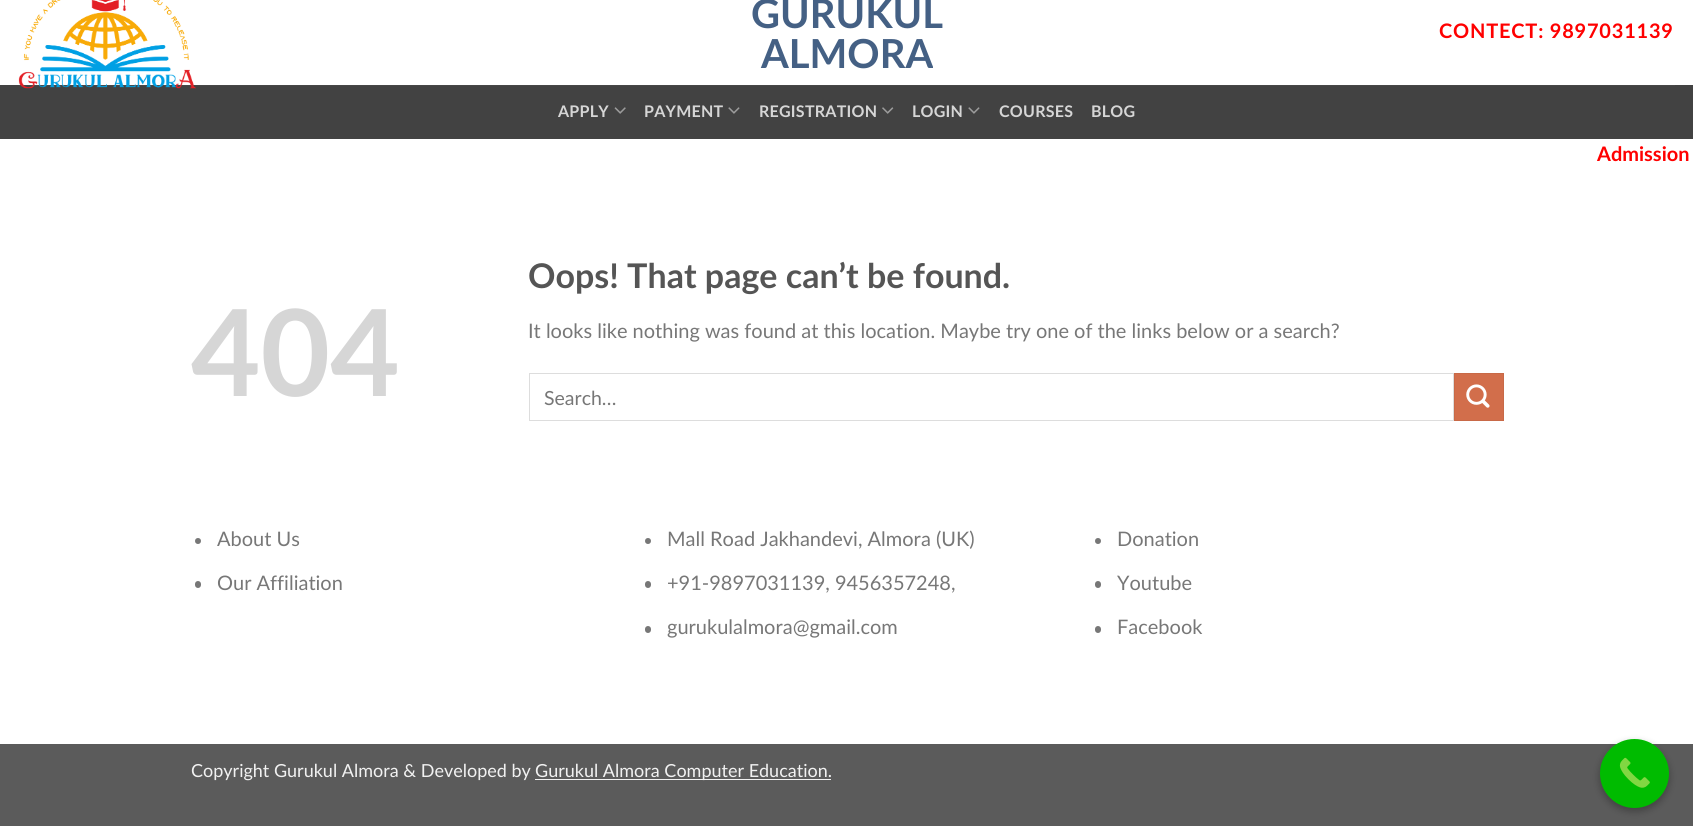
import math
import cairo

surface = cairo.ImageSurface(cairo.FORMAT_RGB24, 1693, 826)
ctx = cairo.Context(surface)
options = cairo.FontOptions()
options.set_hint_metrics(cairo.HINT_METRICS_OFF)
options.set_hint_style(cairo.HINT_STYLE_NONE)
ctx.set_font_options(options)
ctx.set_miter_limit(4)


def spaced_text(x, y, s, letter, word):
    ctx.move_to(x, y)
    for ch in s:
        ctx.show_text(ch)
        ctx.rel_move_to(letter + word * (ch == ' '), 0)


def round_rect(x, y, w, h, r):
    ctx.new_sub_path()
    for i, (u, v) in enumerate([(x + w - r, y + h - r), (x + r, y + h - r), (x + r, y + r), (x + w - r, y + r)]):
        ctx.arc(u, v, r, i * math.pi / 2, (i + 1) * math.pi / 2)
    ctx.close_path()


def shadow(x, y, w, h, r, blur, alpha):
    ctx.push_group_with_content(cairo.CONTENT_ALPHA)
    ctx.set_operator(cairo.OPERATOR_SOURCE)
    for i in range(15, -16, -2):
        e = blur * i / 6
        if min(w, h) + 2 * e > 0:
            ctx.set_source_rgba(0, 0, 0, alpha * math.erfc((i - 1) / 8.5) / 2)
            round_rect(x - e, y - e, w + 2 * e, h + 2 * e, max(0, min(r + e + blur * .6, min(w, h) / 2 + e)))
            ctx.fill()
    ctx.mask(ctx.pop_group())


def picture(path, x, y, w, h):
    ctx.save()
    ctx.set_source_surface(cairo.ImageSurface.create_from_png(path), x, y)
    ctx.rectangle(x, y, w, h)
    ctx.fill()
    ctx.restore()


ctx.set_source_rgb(1, 1, 1)
ctx.paint()
ctx.set_source_rgb(0.259, 0.259, 0.259)
ctx.rectangle(0, 85, 1693, 54)
ctx.fill()
picture("img1.png", 18, 0, 178, 89)
ctx.select_font_face("Lato", cairo.FONT_SLANT_NORMAL, cairo.FONT_WEIGHT_BOLD)
ctx.set_font_size(40)
ctx.set_source_rgb(0.267, 0.376, 0.518)
ctx.move_to(751, 28)
ctx.show_text("GURUKUL")
ctx.move_to(761, 68)
ctx.show_text("ALMORA")
ctx.set_font_size(20)
ctx.set_source_rgb(1, 0, 0)
spaced_text(1439, 38, "CONTECT: 9897031139", 0.8, 0)
ctx.set_source_rgba(0.467, 0.467, 0.467, 0.1)
ctx.rectangle(19, 85, 1656, 1)
ctx.fill()
ctx.set_font_size(16)
ctx.set_source_rgb(0.839, 0.839, 0.839)
spaced_text(558, 117, "APPLY", 0.25, 0)
picture("img2.png", 614, 107, 12, 7)
spaced_text(644, 117, "PAYMENT", 0.25, 0)
picture("img3.png", 728, 107, 12, 7)
spaced_text(759, 117, "REGISTRATION", 0.25, 0)
picture("img4.png", 882, 107, 12, 7)
spaced_text(912, 117, "LOGIN", 0.25, 0)
picture("img3.png", 968, 107, 12, 7)
spaced_text(999, 117, "COURSES", 0.25, 0)
spaced_text(1091, 117, "BLOG", 0.25, 0)
ctx.set_font_size(20)
ctx.set_source_rgb(1, 0, 0)
ctx.move_to(1597, 161)
ctx.show_text("Admission")
ctx.set_font_size(120)
ctx.set_source_rgb(0.839, 0.839, 0.839)
ctx.move_to(191, 396)
ctx.show_text("404")
ctx.set_font_size(34)
ctx.set_source_rgb(0.333, 0.333, 0.333)
ctx.move_to(528, 288)
ctx.show_text("Oops! That page can’t be found.")
ctx.select_font_face("Lato")
ctx.set_font_size(20)
ctx.set_source_rgb(0.467, 0.467, 0.467)
ctx.move_to(528, 338)
ctx.show_text("It looks like nothing was found at this location. Maybe try one of the links below or a search?")
ctx.rectangle(529.5, 373.5, 924, 47)
ctx.set_source_rgb(0.867, 0.867, 0.867)
ctx.set_line_width(1)
ctx.stroke()
ctx.set_font_size(19.5)
ctx.set_source_rgb(0.467, 0.467, 0.467)
ctx.move_to(544, 405)
ctx.show_text("Search…")
ctx.set_source_rgb(0.824, 0.431, 0.294)
ctx.rectangle(1454.5, 373.5, 49, 47)
ctx.fill_preserve()
ctx.set_source_rgb(0.784, 0.412, 0.278)
ctx.stroke()
picture("img5.png", 1466, 384, 24, 24)
ctx.set_source_rgb(0.467, 0.467, 0.467)
ctx.arc(198, 541, 3, 0, 2 * math.pi)
ctx.fill()
ctx.set_font_size(20)
ctx.move_to(217, 546)
ctx.show_text("About Us")
round_rect(195, 581, 6, 7, 3)
ctx.fill()
ctx.move_to(217, 590)
ctx.show_text("Our Affiliation")
ctx.new_path()
ctx.arc(648, 541, 3, 0, 2 * math.pi)
ctx.fill()
ctx.move_to(667, 546)
ctx.show_text("Mall Road Jakhandevi, Almora (UK)")
round_rect(645, 581, 6, 7, 3)
ctx.fill()
ctx.move_to(667, 590)
ctx.show_text("+91-9897031139, 9456357248,")
round_rect(645, 626, 6, 7, 3)
ctx.fill()
ctx.move_to(667, 634)
ctx.show_text("gurukulalmora@gmail.com")
ctx.new_path()
ctx.arc(1098, 541, 3, 0, 2 * math.pi)
ctx.fill()
ctx.move_to(1117, 546)
ctx.show_text("Donation")
round_rect(1095, 581, 6, 7, 3)
ctx.fill()
ctx.move_to(1117, 590)
ctx.show_text("Youtube")
round_rect(1095, 626, 6, 7, 3)
ctx.fill()
ctx.move_to(1117, 634)
ctx.show_text("Facebook")
ctx.set_source_rgb(0.357, 0.357, 0.357)
ctx.rectangle(0, 744, 1693, 82)
ctx.fill()
ctx.set_font_size(18)
ctx.set_source_rgb(0.945, 0.945, 0.945)
ctx.move_to(191, 777)
ctx.show_text("Copyright Gurukul Almora & Developed by")
ctx.rectangle(535, 779, 296, 1)
ctx.fill()
ctx.move_to(535, 777)
ctx.show_text("Gurukul Almora Computer Education.")
ctx.set_source_rgb(0, 0, 0)
shadow(1600, 743, 69, 68, 34, 4, 0.3)
ctx.set_source_rgb(0, 0.733, 0)
ctx.arc(1634.5, 773.5, 34.5, 0, 2 * math.pi)
ctx.fill()
picture("img6.png", 1619, 757, 31, 31)
surface.write_to_png("page.png")
